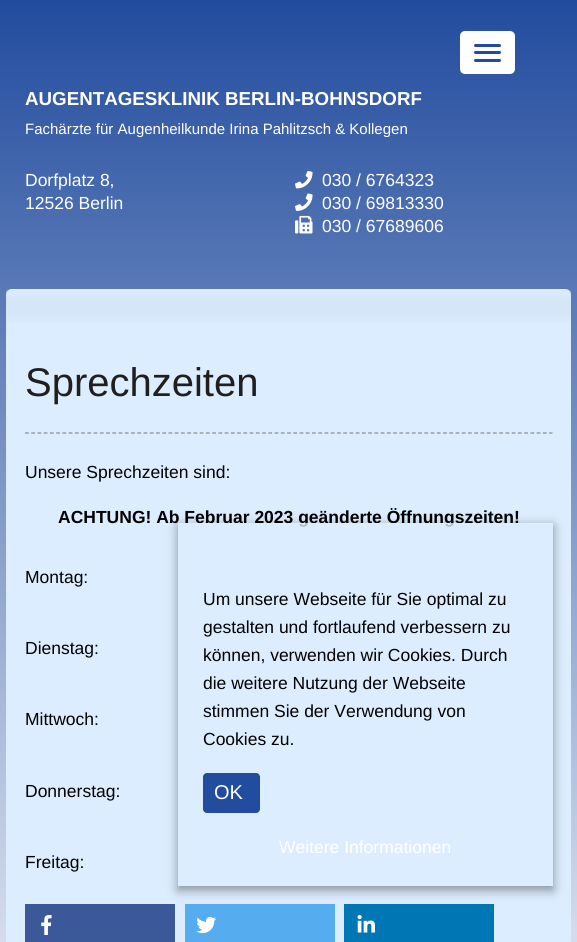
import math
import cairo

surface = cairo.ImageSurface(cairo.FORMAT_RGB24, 577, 942)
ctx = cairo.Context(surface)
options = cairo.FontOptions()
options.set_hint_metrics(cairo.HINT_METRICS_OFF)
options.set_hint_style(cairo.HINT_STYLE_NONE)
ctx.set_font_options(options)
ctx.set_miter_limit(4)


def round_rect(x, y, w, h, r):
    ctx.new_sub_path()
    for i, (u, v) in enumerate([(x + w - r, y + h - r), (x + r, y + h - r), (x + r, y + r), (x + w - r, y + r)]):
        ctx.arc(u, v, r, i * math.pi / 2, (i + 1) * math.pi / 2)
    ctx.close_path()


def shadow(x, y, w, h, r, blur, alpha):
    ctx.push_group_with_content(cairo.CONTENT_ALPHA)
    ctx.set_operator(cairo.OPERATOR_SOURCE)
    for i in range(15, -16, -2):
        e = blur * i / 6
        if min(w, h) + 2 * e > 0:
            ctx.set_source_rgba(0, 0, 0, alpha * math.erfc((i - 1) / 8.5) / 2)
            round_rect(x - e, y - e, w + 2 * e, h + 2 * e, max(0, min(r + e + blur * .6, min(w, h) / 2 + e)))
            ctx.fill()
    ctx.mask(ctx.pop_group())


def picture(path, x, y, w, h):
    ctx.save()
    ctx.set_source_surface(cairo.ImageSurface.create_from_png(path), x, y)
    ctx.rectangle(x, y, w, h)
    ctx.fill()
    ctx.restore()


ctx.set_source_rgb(1, 1, 1)
ctx.paint()
gradient = cairo.LinearGradient(289, 0, 289, 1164)
gradient.add_color_stop_rgba(0, 0.133, 0.298, 0.62, 1)
gradient.add_color_stop_rgba(1, 1, 1, 1, 1)
ctx.set_source(gradient)
ctx.rectangle(0, 0, 577, 942)
ctx.fill()
ctx.set_source_rgb(1, 1, 1)
round_rect(460, 31, 55, 43, 5)
ctx.fill()
ctx.set_source_rgb(0.133, 0.298, 0.62)
round_rect(474, 44, 27, 3, 1.5)
ctx.fill()
round_rect(474, 51, 27, 3, 1.5)
ctx.fill()
round_rect(474, 59, 27, 3, 1.5)
ctx.fill()
ctx.select_font_face("Liberation Sans", cairo.FONT_SLANT_NORMAL, cairo.FONT_WEIGHT_BOLD)
ctx.set_font_size(18.75)
ctx.set_source_rgb(1, 1, 1)
ctx.move_to(25, 105)
ctx.show_text("AUGENTAGESKLINIK BERLIN-BOHNSDORF")
ctx.select_font_face("Liberation Sans")
ctx.set_font_size(15)
ctx.move_to(25, 134)
ctx.show_text("Fachärzte für Augenheilkunde Irina Pahlitzsch & Kollegen")
ctx.set_font_size(17.5)
ctx.move_to(25, 186)
ctx.show_text("Dorfplatz 8,")
ctx.move_to(25, 209)
ctx.show_text("12526 Berlin")
picture("img1.png", 295, 171, 18, 18)
ctx.move_to(322, 186)
ctx.show_text("030 / 6764323")
picture("img2.png", 295, 193, 18, 18)
ctx.move_to(322, 209)
ctx.show_text("030 / 69813330")
picture("img3.png", 295, 215, 18, 19)
ctx.move_to(322, 232)
ctx.show_text("030 / 67689606")
ctx.set_source_rgb(0.863, 0.929, 1)
ctx.new_path()
ctx.move_to(12, 289)
ctx.line_to(565, 289)
ctx.curve_to(568.5, 289, 571, 291.5, 571, 295)
ctx.line_to(571, 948)
ctx.line_to(6, 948)
ctx.line_to(6, 295)
ctx.curve_to(6, 291.5, 8.5, 289, 12, 289)
ctx.close_path()
ctx.fill()
gradient = cairo.LinearGradient(289, 289, 289, 326)
gradient.add_color_stop_rgba(0, 0.835, 0.902, 0.976, 0)
gradient.add_color_stop_rgba(0.3, 0.835, 0.902, 0.976, 1)
gradient.add_color_stop_rgba(0.7, 0.835, 0.902, 0.976, 1)
gradient.add_color_stop_rgba(1, 0.835, 0.902, 0.976, 0)
ctx.set_source(gradient)
ctx.rectangle(6, 289, 565, 33)
ctx.fill()
ctx.new_path()
ctx.move_to(25, 433)
ctx.line_to(552.5, 433)
ctx.set_source_rgb(0.533, 0.537, 0.545)
ctx.set_line_width(1.2)
ctx.set_dash([3.75, 2.49])
ctx.stroke()
ctx.set_font_size(40)
ctx.set_source_rgb(0.122, 0.122, 0.122)
ctx.move_to(25, 396)
ctx.show_text("Sprechzeiten")
ctx.set_font_size(17.5)
ctx.set_source_rgb(0, 0, 0)
ctx.move_to(25, 478)
ctx.show_text("Unsere Sprechzeiten sind:")
ctx.select_font_face("Liberation Sans", cairo.FONT_SLANT_NORMAL, cairo.FONT_WEIGHT_BOLD)
ctx.move_to(58, 523)
ctx.show_text("ACHTUNG! Ab Februar 2023 geänderte Öffnungszeiten!")
ctx.select_font_face("Liberation Sans")
ctx.move_to(25, 583)
ctx.show_text("Montag:")
ctx.move_to(25, 654)
ctx.show_text("Dienstag:")
ctx.move_to(25, 725)
ctx.show_text("Mittwoch:")
ctx.move_to(25, 797)
ctx.show_text("Donnerstag:")
ctx.move_to(25, 868)
ctx.show_text("Freitag:")
ctx.set_source_rgb(0.231, 0.349, 0.596)
ctx.rectangle(25, 904, 150, 38)
ctx.fill()
picture("img4.png", 41, 915, 11, 20)
ctx.set_source_rgb(0.333, 0.675, 0.933)
ctx.rectangle(185, 904, 150, 38)
ctx.fill()
picture("img5.png", 196, 916, 20, 18)
ctx.set_source_rgb(0, 0.467, 0.71)
ctx.rectangle(344, 904, 150, 38)
ctx.fill()
picture("img6.png", 357, 915, 18, 18)
ctx.save()
ctx.set_fill_rule(cairo.FILL_RULE_EVEN_ODD)
ctx.new_path()
ctx.move_to(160, 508)
ctx.line_to(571, 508)
ctx.line_to(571, 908)
ctx.line_to(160, 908)
ctx.close_path()
ctx.move_to(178, 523)
ctx.line_to(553, 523)
ctx.line_to(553, 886)
ctx.line_to(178, 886)
ctx.close_path()
ctx.clip()
ctx.set_source_rgb(0, 0, 0)
shadow(178, 526, 375, 364, 0, 5.5, 0.4)
ctx.restore()
ctx.set_source_rgba(0.863, 0.929, 1, 0.8)
ctx.rectangle(198, 523, 355, 363)
ctx.fill()
ctx.set_source_rgb(0, 0, 0)
ctx.move_to(203, 605)
ctx.show_text("Um unsere Webseite für Sie optimal zu")
ctx.move_to(203, 633)
ctx.show_text("gestalten und fortlaufend verbessern zu")
ctx.move_to(203, 661)
ctx.show_text("können, verwenden wir Cookies. Durch")
ctx.move_to(203, 689)
ctx.show_text("die weitere Nutzung der Webseite")
ctx.move_to(203, 717)
ctx.show_text("stimmen Sie der Verwendung von")
ctx.move_to(203, 745)
ctx.show_text("Cookies zu.")
ctx.set_source_rgb(0.133, 0.298, 0.62)
round_rect(203, 773, 57, 40, 4)
ctx.fill()
ctx.set_font_size(20)
ctx.set_source_rgb(1, 1, 1)
ctx.move_to(214, 799)
ctx.show_text("OK")
ctx.set_font_size(17.5)
ctx.move_to(279, 853)
ctx.show_text("Weitere Informationen")
surface.write_to_png("page.png")
